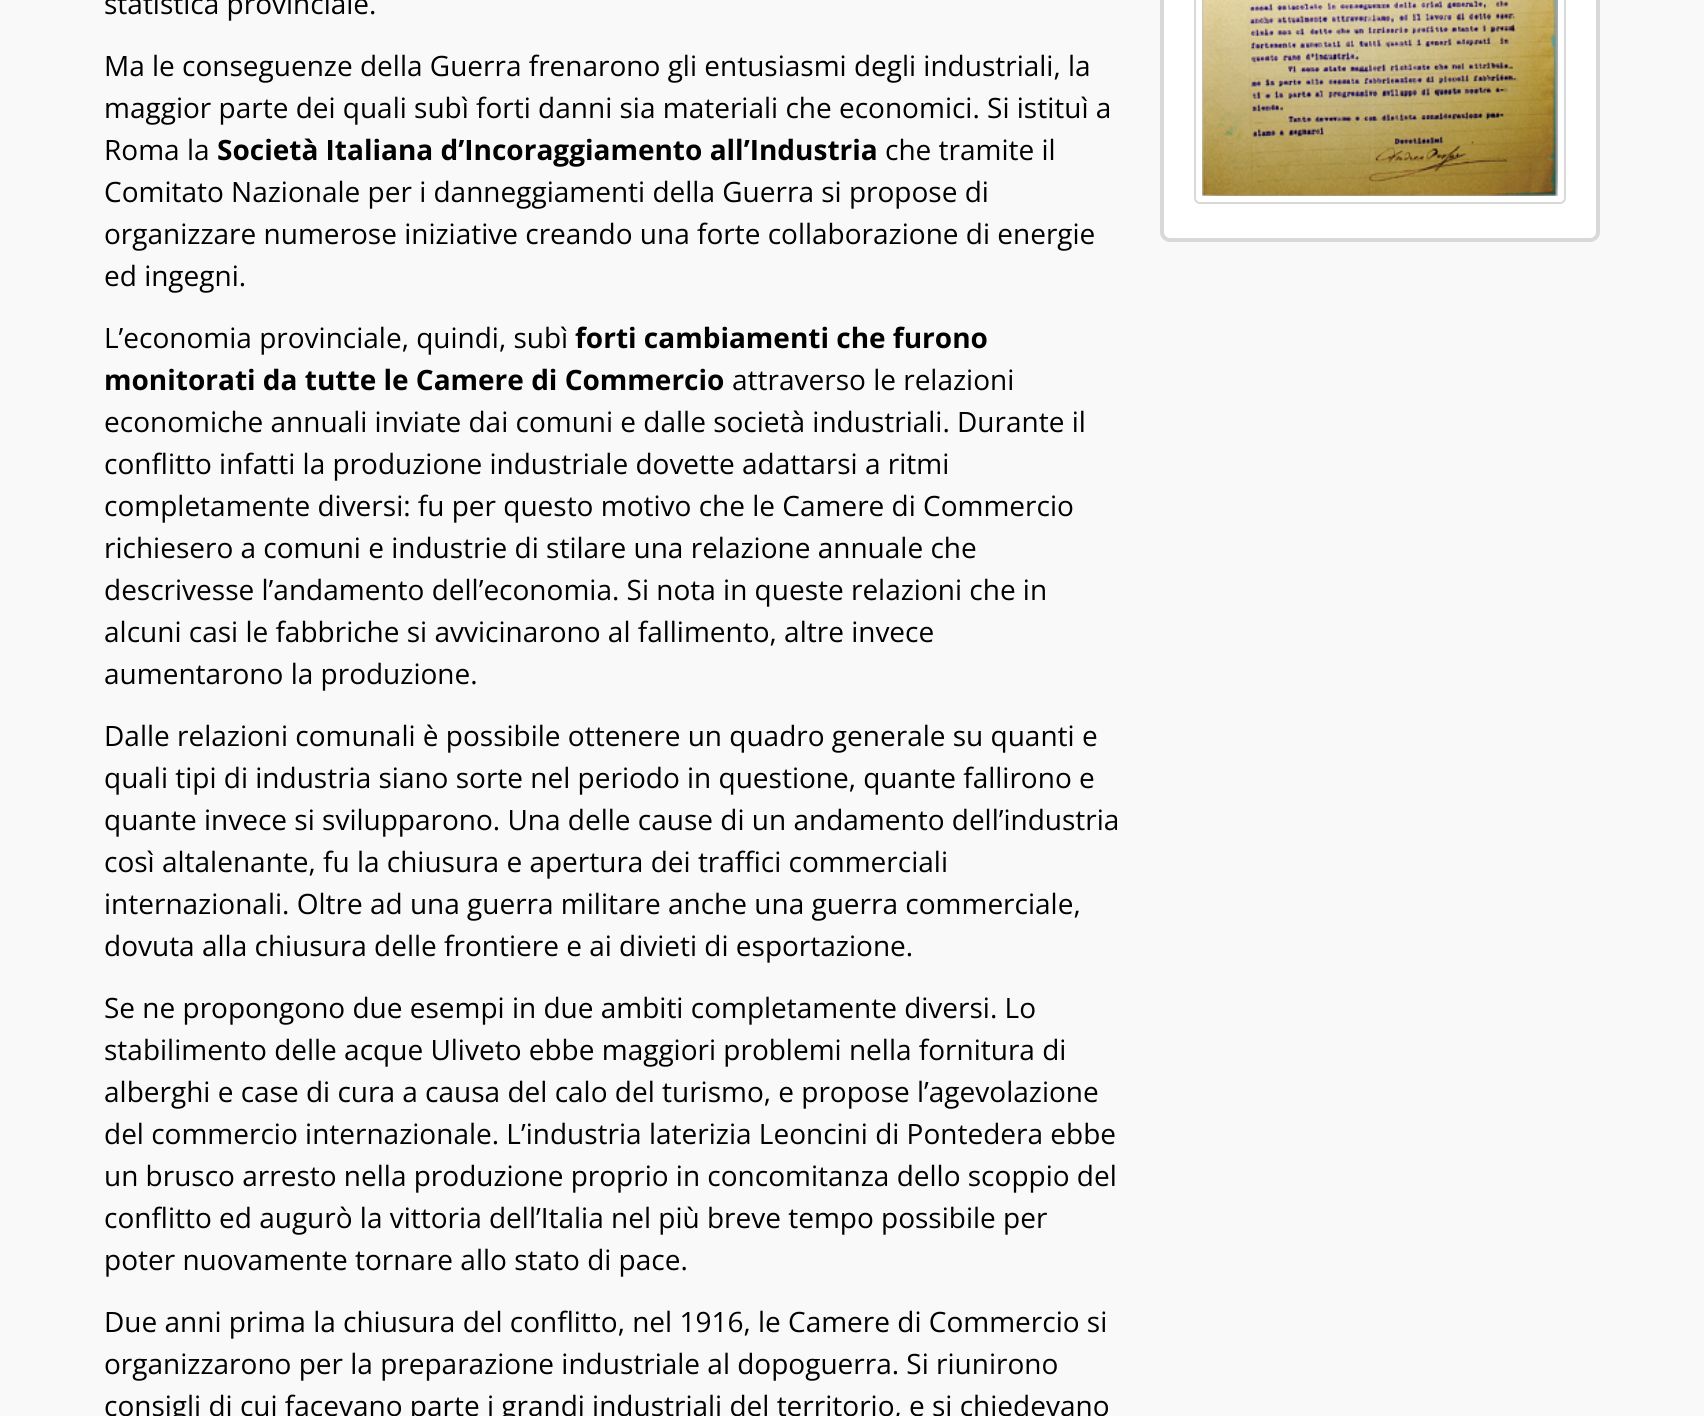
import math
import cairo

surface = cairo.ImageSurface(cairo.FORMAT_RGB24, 1704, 1416)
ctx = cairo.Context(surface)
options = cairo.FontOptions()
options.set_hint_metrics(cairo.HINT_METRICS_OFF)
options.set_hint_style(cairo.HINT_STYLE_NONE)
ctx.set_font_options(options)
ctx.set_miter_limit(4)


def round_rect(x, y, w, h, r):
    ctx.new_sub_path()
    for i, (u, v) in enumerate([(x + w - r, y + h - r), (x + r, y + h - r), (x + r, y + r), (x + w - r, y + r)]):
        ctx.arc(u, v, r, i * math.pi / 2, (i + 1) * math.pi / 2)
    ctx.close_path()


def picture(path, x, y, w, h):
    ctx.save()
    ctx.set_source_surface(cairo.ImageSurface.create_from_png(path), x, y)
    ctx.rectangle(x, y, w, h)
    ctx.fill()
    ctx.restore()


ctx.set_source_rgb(0.973, 0.973, 0.973)
ctx.paint()
ctx.select_font_face("Open Sans")
ctx.set_font_size(28)
ctx.set_source_rgb(0, 0, 0)
ctx.move_to(104, 14)
ctx.show_text("statistica provinciale.")
ctx.move_to(104, 76)
ctx.show_text("Ma le conseguenze della Guerra frenarono gli entusiasmi degli industriali, la")
ctx.move_to(104, 118)
ctx.show_text("maggior parte dei quali subì forti danni sia materiali che economici. Si istituì a")
ctx.move_to(104, 160)
ctx.show_text("Roma la")
ctx.select_font_face("Open Sans", cairo.FONT_SLANT_NORMAL, cairo.FONT_WEIGHT_BOLD)
ctx.move_to(217, 160)
ctx.show_text("Società Italiana d’Incoraggiamento all’Industria")
ctx.select_font_face("Open Sans")
ctx.move_to(885, 160)
ctx.show_text("che tramite il")
ctx.move_to(104, 202)
ctx.show_text("Comitato Nazionale per i danneggiamenti della Guerra si propose di")
ctx.move_to(104, 244)
ctx.show_text("organizzare numerose iniziative creando una forte collaborazione di energie")
ctx.move_to(104, 286)
ctx.show_text("ed ingegni.")
ctx.move_to(104, 348)
ctx.show_text("L’economia provinciale, quindi, subì")
ctx.select_font_face("Open Sans", cairo.FONT_SLANT_NORMAL, cairo.FONT_WEIGHT_BOLD)
ctx.move_to(575, 348)
ctx.show_text("forti cambiamenti che furono")
ctx.move_to(104, 390)
ctx.show_text("monitorati da tutte le Camere di Commercio")
ctx.select_font_face("Open Sans")
ctx.move_to(732, 390)
ctx.show_text("attraverso le relazioni")
ctx.move_to(104, 432)
ctx.show_text("economiche annuali inviate dai comuni e dalle società industriali. Durante il")
ctx.move_to(104, 474)
ctx.show_text("conflitto infatti la produzione industriale dovette adattarsi a ritmi")
ctx.move_to(104, 516)
ctx.show_text("completamente diversi: fu per questo motivo che le Camere di Commercio")
ctx.move_to(104, 558)
ctx.show_text("richiesero a comuni e industrie di stilare una relazione annuale che")
ctx.move_to(104, 600)
ctx.show_text("descrivesse l’andamento dell’economia. Si nota in queste relazioni che in")
ctx.move_to(104, 642)
ctx.show_text("alcuni casi le fabbriche si avvicinarono al fallimento, altre invece")
ctx.move_to(104, 684)
ctx.show_text("aumentarono la produzione.")
ctx.move_to(104, 746)
ctx.show_text("Dalle relazioni comunali è possibile ottenere un quadro generale su quanti e")
ctx.move_to(104, 788)
ctx.show_text("quali tipi di industria siano sorte nel periodo in questione, quante fallirono e")
ctx.move_to(104, 830)
ctx.show_text("quante invece si svilupparono. Una delle cause di un andamento dell’industria")
ctx.move_to(104, 872)
ctx.show_text("così altalenante, fu la chiusura e apertura dei traffici commerciali")
ctx.move_to(104, 914)
ctx.show_text("internazionali. Oltre ad una guerra militare anche una guerra commerciale,")
ctx.move_to(104, 956)
ctx.show_text("dovuta alla chiusura delle frontiere e ai divieti di esportazione.")
ctx.move_to(104, 1018)
ctx.show_text("Se ne propongono due esempi in due ambiti completamente diversi. Lo")
ctx.move_to(104, 1060)
ctx.show_text("stabilimento delle acque Uliveto ebbe maggiori problemi nella fornitura di")
ctx.move_to(104, 1102)
ctx.show_text("alberghi e case di cura a causa del calo del turismo, e propose l’agevolazione")
ctx.move_to(104, 1144)
ctx.show_text("del commercio internazionale. L’industria laterizia Leoncini di Pontedera ebbe")
ctx.move_to(104, 1186)
ctx.show_text("un brusco arresto nella produzione proprio in concomitanza dello scoppio del")
ctx.move_to(104, 1228)
ctx.show_text("conflitto ed augurò la vittoria dell’Italia nel più breve tempo possibile per")
ctx.move_to(104, 1270)
ctx.show_text("poter nuovamente tornare allo stato di pace.")
ctx.move_to(104, 1332)
ctx.show_text("Due anni prima la chiusura del conflitto, nel 1916, le Camere di Commercio si")
ctx.move_to(104, 1374)
ctx.show_text("organizzarono per la preparazione industriale al dopoguerra. Si riunirono")
ctx.move_to(104, 1416)
ctx.show_text("consigli di cui facevano parte i grandi industriali del territorio, e si chiedevano")
ctx.set_source_rgb(1, 1, 1)
round_rect(1162, -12, 436, 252, 8)
ctx.fill_preserve()
ctx.set_source_rgb(0.851, 0.851, 0.851)
ctx.set_line_width(4)
ctx.stroke()
round_rect(1195, -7, 370, 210, 5)
ctx.set_line_width(2)
ctx.stroke()
picture("img1.png", 1202, 0, 356, 196)
surface.write_to_png("page.png")
